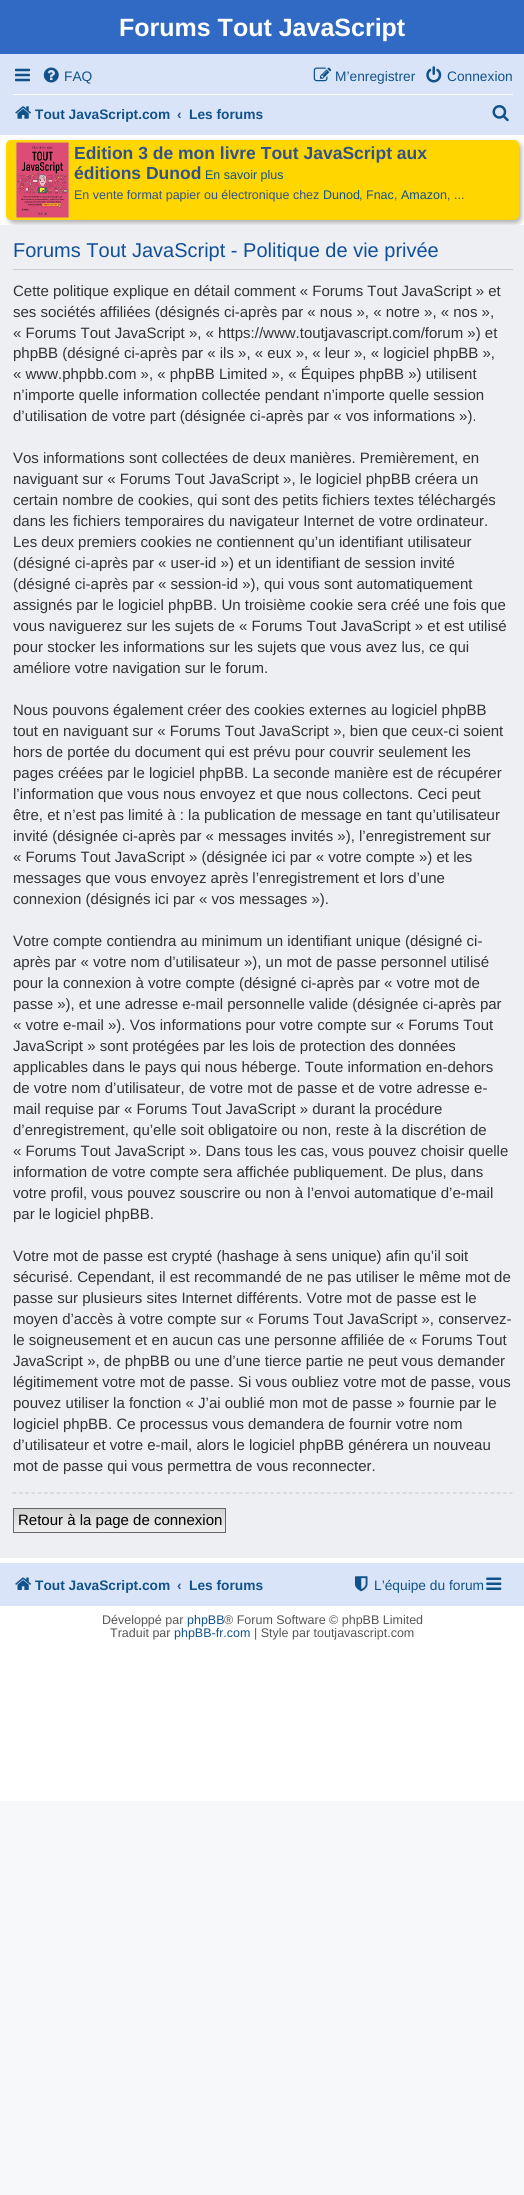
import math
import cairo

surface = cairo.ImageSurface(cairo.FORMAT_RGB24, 524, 2195)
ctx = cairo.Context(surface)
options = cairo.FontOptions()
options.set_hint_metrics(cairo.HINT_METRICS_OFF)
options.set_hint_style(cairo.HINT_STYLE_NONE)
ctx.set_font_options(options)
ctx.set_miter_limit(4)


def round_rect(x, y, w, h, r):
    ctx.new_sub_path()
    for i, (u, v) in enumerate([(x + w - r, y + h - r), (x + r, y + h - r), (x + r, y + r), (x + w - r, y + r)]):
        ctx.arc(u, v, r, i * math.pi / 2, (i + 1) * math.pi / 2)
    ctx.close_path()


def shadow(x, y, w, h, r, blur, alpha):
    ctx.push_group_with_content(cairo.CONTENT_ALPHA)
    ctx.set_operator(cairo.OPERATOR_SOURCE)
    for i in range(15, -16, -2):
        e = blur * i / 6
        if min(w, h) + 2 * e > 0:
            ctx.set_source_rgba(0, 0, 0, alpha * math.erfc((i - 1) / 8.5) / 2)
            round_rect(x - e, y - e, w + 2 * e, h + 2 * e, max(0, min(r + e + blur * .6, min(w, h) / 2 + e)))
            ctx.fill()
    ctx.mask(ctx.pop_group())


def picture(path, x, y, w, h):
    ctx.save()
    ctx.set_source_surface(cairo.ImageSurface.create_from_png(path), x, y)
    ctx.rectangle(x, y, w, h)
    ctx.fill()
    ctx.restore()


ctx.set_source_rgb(0.961, 0.969, 0.98)
ctx.paint()
ctx.set_source_rgb(1, 1, 1)
ctx.rectangle(0, 135, 524, 1666)
ctx.fill()
ctx.set_source_rgb(0.192, 0.416, 0.773)
ctx.rectangle(0, 0, 524, 54)
ctx.fill()
ctx.select_font_face("Liberation Sans", cairo.FONT_SLANT_NORMAL, cairo.FONT_WEIGHT_BOLD)
ctx.set_font_size(25)
ctx.set_source_rgb(1, 1, 1)
ctx.move_to(119, 36)
ctx.show_text("Forums Tout JavaScript")
ctx.set_source_rgb(0.851, 0.894, 0.969)
ctx.rectangle(0, 54, 524, 81)
ctx.fill()
picture("img1.png", 15, 68, 15, 14)
picture("img2.png", 43, 67, 16, 16)
ctx.select_font_face("Liberation Sans")
ctx.set_font_size(13.75)
ctx.set_source_rgb(0.063, 0.322, 0.537)
ctx.move_to(64, 81)
ctx.show_text("FAQ")
picture("img3.png", 313, 67, 19, 15)
ctx.move_to(335, 81)
ctx.show_text("M’enregistrer")
picture("img4.png", 426, 66, 16, 17)
ctx.move_to(447, 81)
ctx.show_text("Connexion")
ctx.set_source_rgb(1, 1, 1)
ctx.rectangle(13, 94, 500, 1)
ctx.fill()
picture("img5.png", 15, 106, 16, 13)
ctx.select_font_face("Liberation Sans", cairo.FONT_SLANT_NORMAL, cairo.FONT_WEIGHT_BOLD)
ctx.set_source_rgb(0.063, 0.322, 0.537)
ctx.move_to(35, 119)
ctx.show_text("Tout JavaScript.com")
ctx.set_source_rgb(0.192, 0.322, 0.549)
ctx.move_to(177, 119)
ctx.show_text("‹")
ctx.set_source_rgb(0.063, 0.322, 0.537)
ctx.move_to(189, 119)
ctx.show_text("Les forums")
picture("img6.png", 492, 105, 17, 17)
ctx.set_source_rgb(0.667, 0.667, 0.667)
shadow(9, 143, 512, 80, 5, 3, 1)
ctx.set_source_rgb(1, 0.839, 0)
round_rect(6, 140, 513, 80, 5)
ctx.fill()
picture("img7.png", 16, 142, 53, 76)
ctx.set_font_size(17.5)
ctx.set_source_rgb(0.192, 0.322, 0.549)
ctx.move_to(74, 159)
ctx.show_text("Edition 3 de mon livre Tout JavaScript aux")
ctx.move_to(74, 179)
ctx.show_text("éditions Dunod")
ctx.select_font_face("Liberation Sans")
ctx.set_font_size(12.5)
ctx.set_source_rgb(0.063, 0.322, 0.537)
ctx.move_to(205, 179)
ctx.show_text("En savoir plus")
ctx.set_source_rgb(0.192, 0.322, 0.549)
ctx.move_to(74, 199)
ctx.show_text("En vente format papier ou électronique chez")
ctx.set_source_rgb(0.063, 0.322, 0.537)
ctx.move_to(323, 199)
ctx.show_text("Dunod")
ctx.set_source_rgb(0.192, 0.322, 0.549)
ctx.move_to(359, 199)
ctx.show_text(",")
ctx.set_source_rgb(0.063, 0.322, 0.537)
ctx.move_to(366, 199)
ctx.show_text("Fnac")
ctx.set_source_rgb(0.192, 0.322, 0.549)
ctx.move_to(394, 199)
ctx.show_text(",")
ctx.set_source_rgb(0.063, 0.322, 0.537)
ctx.move_to(401, 199)
ctx.show_text("Amazon")
ctx.set_source_rgb(0.192, 0.322, 0.549)
ctx.move_to(447, 199)
ctx.show_text(", ...")
ctx.set_source_rgb(0.929, 0.937, 0.949)
ctx.rectangle(0, 225, 524, 1333)
ctx.fill()
ctx.set_source_rgb(0.8, 0.8, 0.8)
ctx.rectangle(13, 269, 500, 1)
ctx.fill()
ctx.set_font_size(20)
ctx.set_source_rgb(0.067, 0.314, 0.596)
ctx.move_to(13, 257)
ctx.show_text("Forums Tout JavaScript - Politique de vie privée")
ctx.set_font_size(15)
ctx.set_source_rgb(0.2, 0.2, 0.2)
ctx.move_to(13, 296)
ctx.show_text("Cette politique explique en détail comment « Forums Tout JavaScript » et")
ctx.move_to(13, 317)
ctx.show_text("ses sociétés affiliées (désignés ci-après par « nous », « notre », « nos »,")
ctx.move_to(13, 338)
ctx.show_text("« Forums Tout JavaScript », « https://www.toutjavascript.com/forum ») et")
ctx.move_to(13, 358)
ctx.show_text("phpBB (désigné ci-après par « ils », « eux », « leur », « logiciel phpBB »,")
ctx.move_to(13, 379)
ctx.show_text("« www.phpbb.com », « phpBB Limited », « Équipes phpBB ») utilisent")
ctx.move_to(13, 400)
ctx.show_text("n’importe quelle information collectée pendant n’importe quelle session")
ctx.move_to(13, 421)
ctx.show_text("d’utilisation de votre part (désignée ci-après par « vos informations »).")
ctx.move_to(13, 463)
ctx.show_text("Vos informations sont collectées de deux manières. Premièrement, en")
ctx.move_to(13, 484)
ctx.show_text("naviguant sur « Forums Tout JavaScript », le logiciel phpBB créera un")
ctx.move_to(13, 505)
ctx.show_text("certain nombre de cookies, qui sont des petits fichiers textes téléchargés")
ctx.move_to(13, 526)
ctx.show_text("dans les fichiers temporaires du navigateur Internet de votre ordinateur.")
ctx.move_to(13, 547)
ctx.show_text("Les deux premiers cookies ne contiennent qu’un identifiant utilisateur")
ctx.move_to(13, 568)
ctx.show_text("(désigné ci-après par « user-id ») et un identifiant de session invité")
ctx.move_to(13, 589)
ctx.show_text("(désigné ci-après par « session-id »), qui vous sont automatiquement")
ctx.move_to(13, 610)
ctx.show_text("assignés par le logiciel phpBB. Un troisième cookie sera créé une fois que")
ctx.move_to(13, 631)
ctx.show_text("vous naviguerez sur les sujets de « Forums Tout JavaScript » et est utilisé")
ctx.move_to(13, 652)
ctx.show_text("pour stocker les informations sur les sujets que vous avez lus, ce qui")
ctx.move_to(13, 673)
ctx.show_text("améliore votre navigation sur le forum.")
ctx.move_to(13, 715)
ctx.show_text("Nous pouvons également créer des cookies externes au logiciel phpBB")
ctx.move_to(13, 736)
ctx.show_text("tout en naviguant sur « Forums Tout JavaScript », bien que ceux-ci soient")
ctx.move_to(13, 757)
ctx.show_text("hors de portée du document qui est prévu pour couvrir seulement les")
ctx.move_to(13, 778)
ctx.show_text("pages créées par le logiciel phpBB. La seconde manière est de récupérer")
ctx.move_to(13, 799)
ctx.show_text("l’information que vous nous envoyez et que nous collectons. Ceci peut")
ctx.move_to(13, 820)
ctx.show_text("être, et n’est pas limité à : la publication de message en tant qu’utilisateur")
ctx.move_to(13, 841)
ctx.show_text("invité (désignée ci-après par « messages invités »), l’enregistrement sur")
ctx.move_to(13, 862)
ctx.show_text("« Forums Tout JavaScript » (désignée ici par « votre compte ») et les")
ctx.move_to(13, 883)
ctx.show_text("messages que vous envoyez après l’enregistrement et lors d’une")
ctx.move_to(13, 904)
ctx.show_text("connexion (désignés ici par « vos messages »).")
ctx.move_to(13, 946)
ctx.show_text("Votre compte contiendra au minimum un identifiant unique (désigné ci-")
ctx.move_to(13, 967)
ctx.show_text("après par « votre nom d’utilisateur »), un mot de passe personnel utilisé")
ctx.move_to(13, 988)
ctx.show_text("pour la connexion à votre compte (désigné ci-après par « votre mot de")
ctx.move_to(13, 1009)
ctx.show_text("passe »), et une adresse e-mail personnelle valide (désignée ci-après par")
ctx.move_to(13, 1030)
ctx.show_text("« votre e-mail »). Vos informations pour votre compte sur « Forums Tout")
ctx.move_to(13, 1051)
ctx.show_text("JavaScript » sont protégées par les lois de protection des données")
ctx.move_to(13, 1072)
ctx.show_text("applicables dans le pays qui nous héberge. Toute information en-dehors")
ctx.move_to(13, 1093)
ctx.show_text("de votre nom d’utilisateur, de votre mot de passe et de votre adresse e-")
ctx.move_to(13, 1114)
ctx.show_text("mail requise par « Forums Tout JavaScript » durant la procédure")
ctx.move_to(13, 1135)
ctx.show_text("d’enregistrement, qu’elle soit obligatoire ou non, reste à la discrétion de")
ctx.move_to(13, 1156)
ctx.show_text("« Forums Tout JavaScript ». Dans tous les cas, vous pouvez choisir quelle")
ctx.move_to(13, 1177)
ctx.show_text("information de votre compte sera affichée publiquement. De plus, dans")
ctx.move_to(13, 1198)
ctx.show_text("votre profil, vous pouvez souscrire ou non à l’envoi automatique d’e-mail")
ctx.move_to(13, 1219)
ctx.show_text("par le logiciel phpBB.")
ctx.move_to(13, 1261)
ctx.show_text("Votre mot de passe est crypté (hashage à sens unique) afin qu’il soit")
ctx.move_to(13, 1282)
ctx.show_text("sécurisé. Cependant, il est recommandé de ne pas utiliser le même mot de")
ctx.move_to(13, 1303)
ctx.show_text("passe sur plusieurs sites Internet différents. Votre mot de passe est le")
ctx.move_to(13, 1324)
ctx.show_text("moyen d’accès à votre compte sur « Forums Tout JavaScript », conservez-")
ctx.move_to(13, 1345)
ctx.show_text("le soigneusement et en aucun cas une personne affiliée de « Forums Tout")
ctx.move_to(13, 1366)
ctx.show_text("JavaScript », de phpBB ou une d’une tierce partie ne peut vous demander")
ctx.move_to(13, 1387)
ctx.show_text("légitimement votre mot de passe. Si vous oubliez votre mot de passe, vous")
ctx.move_to(13, 1408)
ctx.show_text("pouvez utiliser la fonction « J’ai oublié mon mot de passe » fournie par le")
ctx.move_to(13, 1429)
ctx.show_text("logiciel phpBB. Ce processus vous demandera de fournir votre nom")
ctx.move_to(13, 1450)
ctx.show_text("d’utilisateur et votre e-mail, alors le logiciel phpBB générera un nouveau")
ctx.move_to(13, 1471)
ctx.show_text("mot de passe qui vous permettra de vous reconnecter.")
ctx.new_path()
ctx.move_to(12.5, 1493)
ctx.line_to(512.5, 1493)
ctx.set_source_rgb(0.8, 0.8, 0.8)
ctx.set_line_width(1.2)
ctx.set_dash([3.75, 2.54])
ctx.stroke()
ctx.set_source_rgb(0.937, 0.937, 0.937)
ctx.rectangle(14, 1531, 211, 1)
ctx.fill()
gradient = cairo.LinearGradient(119, 1509, 119, 1531)
gradient.add_color_stop_rgba(0, 0.824, 0.824, 0.824, 1)
gradient.add_color_stop_rgba(1, 0.937, 0.937, 0.937, 1)
ctx.set_source(gradient)
ctx.rectangle(14, 1509, 211, 22)
ctx.fill()
ctx.rectangle(13.5, 1508.5, 212, 24)
ctx.set_source_rgb(0.4, 0.4, 0.4)
ctx.set_line_width(1)
ctx.set_dash([])
ctx.stroke()
ctx.set_source_rgb(0, 0, 0)
ctx.move_to(18, 1525)
ctx.show_text("Retour à la page de connexion")
ctx.set_source_rgb(0.851, 0.894, 0.969)
ctx.rectangle(0, 1563, 524, 43)
ctx.fill()
picture("img8.png", 15, 1577, 16, 13)
ctx.select_font_face("Liberation Sans", cairo.FONT_SLANT_NORMAL, cairo.FONT_WEIGHT_BOLD)
ctx.set_font_size(13.75)
ctx.set_source_rgb(0.063, 0.322, 0.537)
ctx.move_to(35, 1590)
ctx.show_text("Tout JavaScript.com")
ctx.set_source_rgb(0.192, 0.322, 0.549)
ctx.move_to(177, 1590)
ctx.show_text("‹")
ctx.set_source_rgb(0.063, 0.322, 0.537)
ctx.move_to(189, 1590)
ctx.show_text("Les forums")
picture("img9.png", 355, 1576, 13, 16)
ctx.select_font_face("Liberation Sans")
ctx.move_to(374, 1590)
ctx.show_text("L’équipe du forum")
picture("img10.png", 486, 1577, 16, 13)
ctx.set_font_size(12.5)
ctx.set_source_rgb(0.333, 0.333, 0.333)
ctx.move_to(102, 1624)
ctx.show_text("Développé par")
ctx.set_source_rgb(0.063, 0.322, 0.537)
ctx.move_to(187, 1624)
ctx.show_text("phpBB")
ctx.set_source_rgb(0.333, 0.333, 0.333)
ctx.move_to(224, 1624)
ctx.show_text("® Forum Software © phpBB Limited")
ctx.move_to(110, 1637)
ctx.show_text("Traduit par")
ctx.set_source_rgb(0.063, 0.322, 0.537)
ctx.move_to(174, 1637)
ctx.show_text("phpBB-fr.com")
ctx.set_source_rgb(0.333, 0.333, 0.333)
ctx.move_to(254, 1637)
ctx.show_text("| Style par toutjavascript.com")
surface.write_to_png("page.png")
